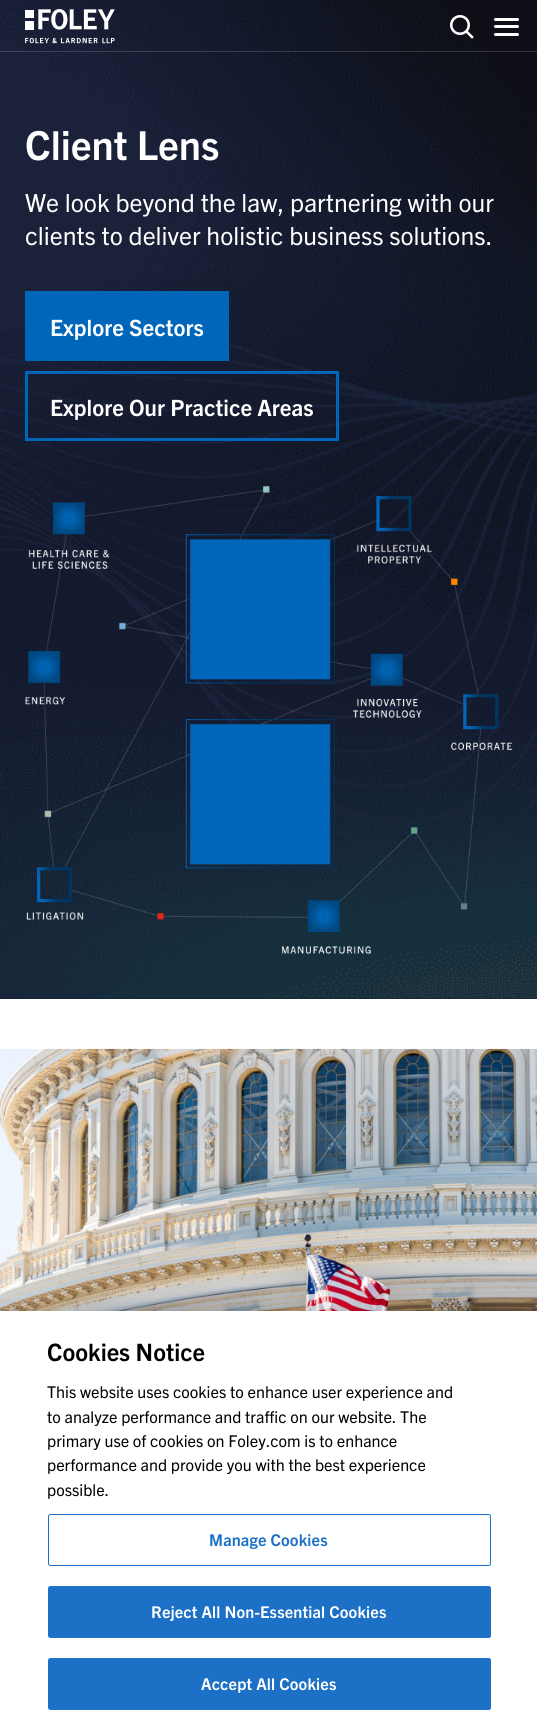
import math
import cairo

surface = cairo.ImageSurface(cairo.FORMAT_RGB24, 537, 1729)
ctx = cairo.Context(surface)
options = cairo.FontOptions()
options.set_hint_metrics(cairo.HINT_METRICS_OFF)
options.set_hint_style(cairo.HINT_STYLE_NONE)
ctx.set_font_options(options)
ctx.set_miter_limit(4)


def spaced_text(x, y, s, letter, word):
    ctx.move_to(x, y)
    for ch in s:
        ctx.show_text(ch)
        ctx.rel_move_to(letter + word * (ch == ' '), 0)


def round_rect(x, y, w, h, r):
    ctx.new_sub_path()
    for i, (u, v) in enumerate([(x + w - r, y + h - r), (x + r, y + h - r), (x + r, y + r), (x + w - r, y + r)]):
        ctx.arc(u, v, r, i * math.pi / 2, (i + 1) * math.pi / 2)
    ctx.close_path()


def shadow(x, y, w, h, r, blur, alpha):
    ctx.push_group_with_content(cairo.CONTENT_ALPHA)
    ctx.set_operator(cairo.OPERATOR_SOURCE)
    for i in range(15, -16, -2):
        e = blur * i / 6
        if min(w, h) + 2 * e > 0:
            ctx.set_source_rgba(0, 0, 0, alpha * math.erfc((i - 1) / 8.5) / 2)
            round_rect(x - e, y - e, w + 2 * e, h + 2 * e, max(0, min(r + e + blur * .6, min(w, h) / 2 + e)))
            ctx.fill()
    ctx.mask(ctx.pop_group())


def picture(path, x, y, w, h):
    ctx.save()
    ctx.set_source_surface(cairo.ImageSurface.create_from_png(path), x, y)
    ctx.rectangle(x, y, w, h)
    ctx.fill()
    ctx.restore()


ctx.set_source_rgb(1, 1, 1)
ctx.paint()
gradient = cairo.RadialGradient(0, 0, 0, 0, 0, 1)
gradient.set_matrix(cairo.Matrix(1 / 2051, 0, 0, 1 / 1021, -1 * 0 / 2051, -1 * 488 / 1021))
gradient.add_color_stop_rgba(0, 0.086, 0.247, 0.435, 1)
gradient.add_color_stop_rgba(0.31, 0.055, 0.161, 0.286, 1)
gradient.add_color_stop_rgba(1, 0.004, 0.008, 0.027, 1)
ctx.set_source(gradient)
ctx.rectangle(0, 998, 537, 1)
ctx.fill()
picture("img3.png", 0, 0, 537, 999)
ctx.set_source_rgba(1, 1, 1, 0.15)
ctx.rectangle(0, 51, 537, 1)
ctx.fill()
picture("img1.png", 25, 9, 90, 35)
picture("img2.png", 450, 15, 24, 24)
ctx.set_source_rgb(1, 1, 1)
round_rect(494, 18, 25, 3, 1.5)
ctx.fill()
round_rect(494, 25, 25, 3, 1.5)
ctx.fill()
round_rect(494, 33, 25, 3, 1.5)
ctx.fill()
ctx.select_font_face("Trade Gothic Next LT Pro", cairo.FONT_SLANT_NORMAL, cairo.FONT_WEIGHT_BOLD)
ctx.set_font_size(40)
ctx.move_to(25, 160)
ctx.show_text("Client Lens")
ctx.select_font_face("Trade Gothic Next LT Pro")
ctx.set_font_size(25)
ctx.move_to(25, 212)
ctx.show_text("We look beyond the law, partnering with our")
ctx.move_to(25, 245)
ctx.show_text("clients to deliver holistic business solutions.")
ctx.set_source_rgb(0, 0.4, 0.729)
ctx.rectangle(25, 291, 204, 70)
ctx.fill()
ctx.select_font_face("Trade Gothic Next LT Pro", cairo.FONT_SLANT_NORMAL, cairo.FONT_WEIGHT_BOLD)
ctx.set_font_size(22.5)
ctx.set_source_rgb(1, 1, 1)
ctx.move_to(50, 336)
ctx.show_text("Explore Sectors")
ctx.rectangle(26.5, 372.5, 311, 67)
ctx.set_source_rgb(0, 0.4, 0.729)
ctx.set_line_width(3)
ctx.stroke()
ctx.set_source_rgb(1, 1, 1)
ctx.move_to(50, 416)
ctx.show_text("Explore Our Practice Areas")
picture("img4.png", 25, 486, 488, 468)
picture("img5.png", 0, 1048, 537, 263)
ctx.set_source_rgb(0, 0, 0)
shadow(0, 1311, 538, 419, 0, 11, 0.2)
ctx.set_source_rgb(1, 1, 1)
ctx.rectangle(0, 1311, 537, 418)
ctx.fill()
ctx.save()
ctx.rectangle(48, 1336, 418, 165)
ctx.clip()
ctx.set_font_size(24)
ctx.set_source_rgb(0, 0, 0)
ctx.move_to(47, 1361)
ctx.show_text("Cookies Notice")
ctx.restore()
ctx.select_font_face("Trade Gothic Next LT Pro")
ctx.set_font_size(16.25)
ctx.set_source_rgb(0, 0, 0)
ctx.move_to(47, 1398)
ctx.show_text("This website uses cookies to enhance user experience and")
ctx.move_to(47, 1423)
ctx.show_text("to analyze performance and traffic on our website. The")
ctx.move_to(47, 1447)
ctx.show_text("primary use of cookies on Foley.com is to enhance")
ctx.move_to(47, 1471)
ctx.show_text("performance and provide you with the best experience")
ctx.move_to(47, 1496)
ctx.show_text("possible.")
round_rect(48.5, 1514.5, 442, 51, 2)
ctx.set_source_rgb(0.11, 0.439, 0.776)
ctx.set_line_width(1)
ctx.stroke()
ctx.select_font_face("Trade Gothic Next LT Pro", cairo.FONT_SLANT_NORMAL, cairo.FONT_WEIGHT_BOLD)
spaced_text(209, 1546, "Manage Cookies", 0.15, 0)
round_rect(48.5, 1586.5, 442, 51, 2)
ctx.fill_preserve()
ctx.stroke()
ctx.set_source_rgb(1, 1, 1)
spaced_text(151, 1618, "Reject All Non-Essential Cookies", 0.15, 0)
ctx.set_source_rgb(0.11, 0.439, 0.776)
round_rect(48.5, 1658.5, 442, 51, 2)
ctx.fill_preserve()
ctx.stroke()
ctx.set_source_rgb(1, 1, 1)
spaced_text(201, 1690, "Accept All Cookies", 0.15, 0)
surface.write_to_png("page.png")
